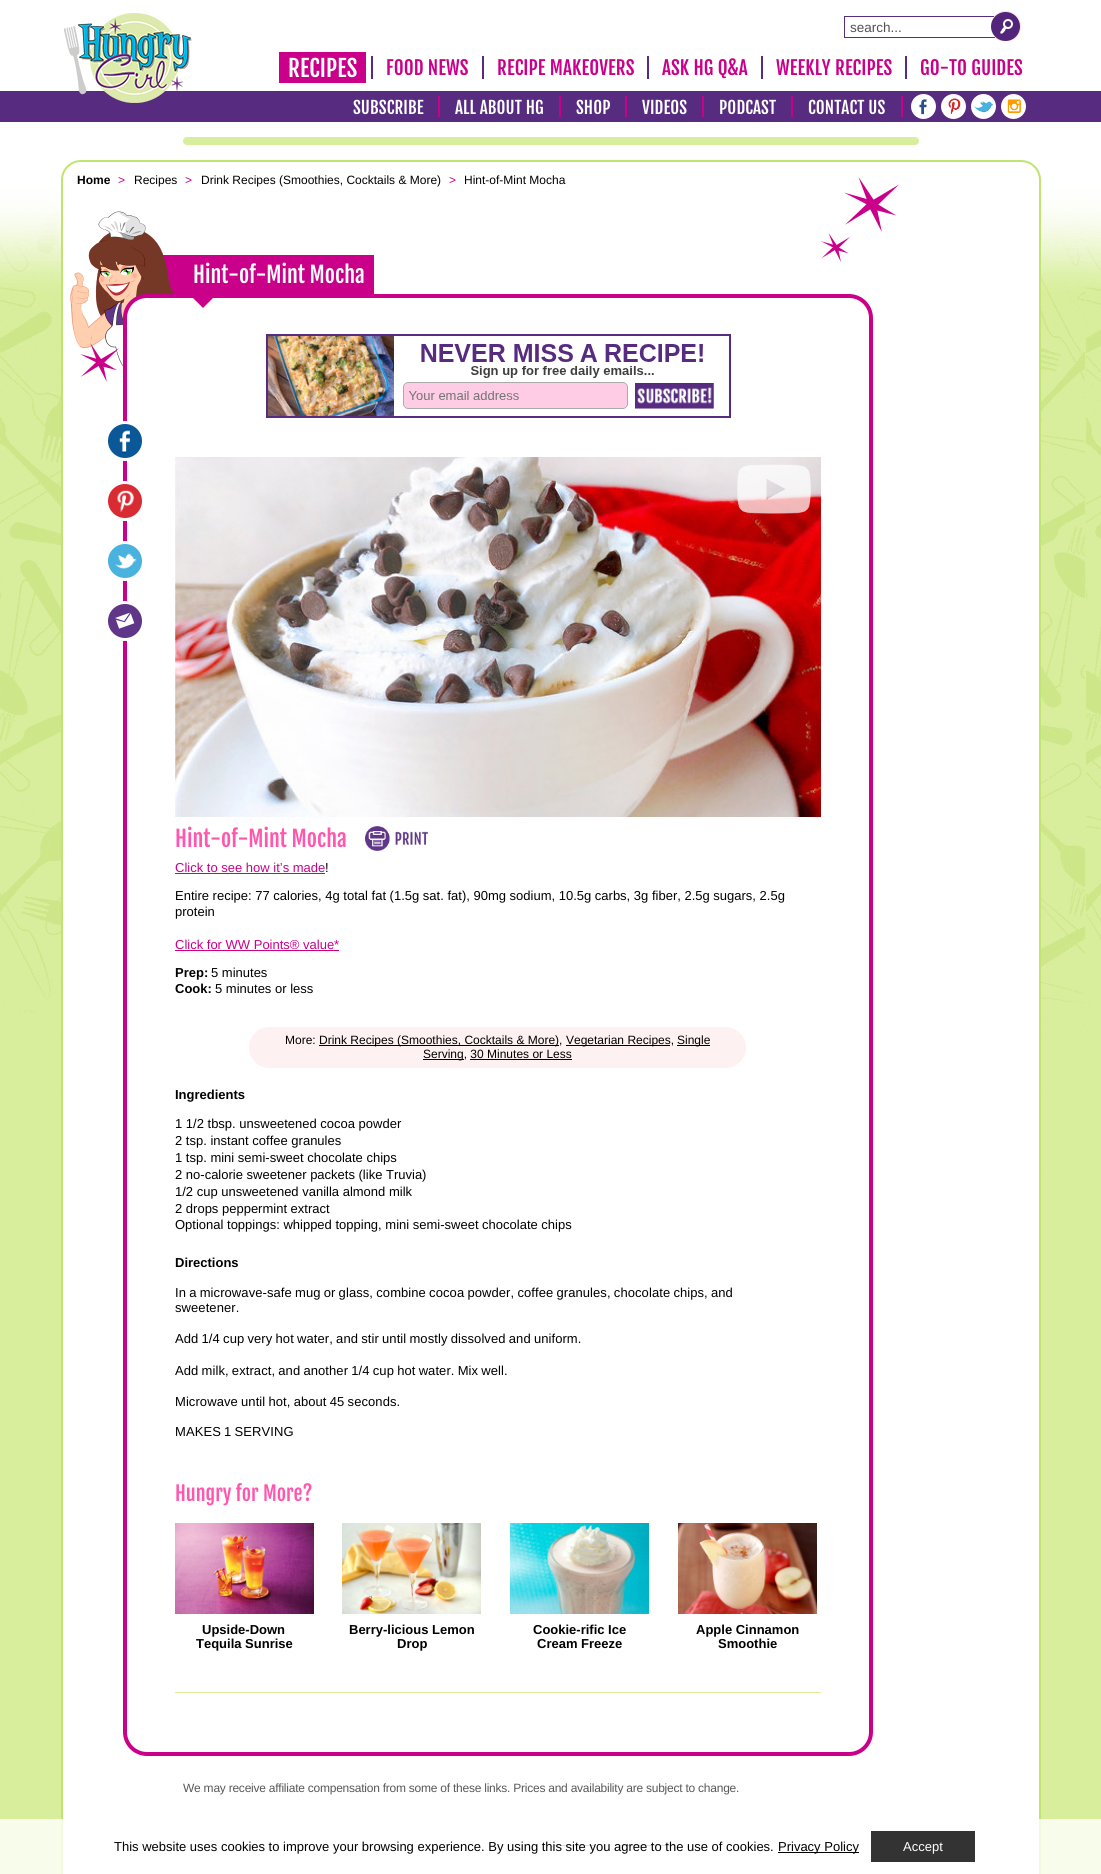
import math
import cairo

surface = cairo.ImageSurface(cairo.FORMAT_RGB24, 1101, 1874)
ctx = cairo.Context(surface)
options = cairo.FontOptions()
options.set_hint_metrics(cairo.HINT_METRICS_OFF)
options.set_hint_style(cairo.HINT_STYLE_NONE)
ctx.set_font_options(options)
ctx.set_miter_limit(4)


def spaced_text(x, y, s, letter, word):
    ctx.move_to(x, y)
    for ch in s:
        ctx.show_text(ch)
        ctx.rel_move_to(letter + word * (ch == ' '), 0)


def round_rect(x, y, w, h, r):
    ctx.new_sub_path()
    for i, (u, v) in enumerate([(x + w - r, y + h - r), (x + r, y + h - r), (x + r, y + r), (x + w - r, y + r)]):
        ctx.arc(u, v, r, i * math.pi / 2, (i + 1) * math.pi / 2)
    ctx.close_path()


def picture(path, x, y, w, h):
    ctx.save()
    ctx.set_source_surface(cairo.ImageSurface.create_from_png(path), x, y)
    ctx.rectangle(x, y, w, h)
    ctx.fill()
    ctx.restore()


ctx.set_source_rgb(0.847, 0.933, 0.612)
ctx.paint()
picture("img1.png", 0, 0, 1101, 1175)
ctx.set_source_rgb(0.341, 0.169, 0.502)
ctx.rectangle(0, 91, 1101, 31)
ctx.fill()
picture("img2.png", 64, 13, 128, 90)
ctx.set_source_rgb(0.341, 0.176, 0.49)
ctx.rectangle(844, 16, 152, 1)
ctx.fill()
ctx.rectangle(844, 37, 152, 1)
ctx.fill()
ctx.rectangle(844, 16, 1, 22)
ctx.fill()
ctx.select_font_face("Liberation Sans")
ctx.set_font_size(13.5)
ctx.set_source_rgb(0.318, 0.318, 0.318)
ctx.move_to(850, 32)
ctx.show_text("search...")
picture("img3.png", 991, 11, 30, 30)
ctx.set_source_rgb(0.792, 0, 0.541)
ctx.rectangle(279, 52, 87, 31)
ctx.fill()
ctx.select_font_face("Fjalla One")
ctx.set_font_size(23)
ctx.set_source_rgb(1, 1, 1)
spaced_text(288, 77, "RECIPES", 0.1, 0)
ctx.set_source_rgb(0.341, 0.169, 0.502)
ctx.rectangle(371, 56, 2, 23)
ctx.fill()
ctx.set_font_size(19)
ctx.set_source_rgb(0.792, 0, 0.541)
spaced_text(386, 75, "FOOD NEWS", 0.1, 0)
ctx.set_source_rgb(0.341, 0.169, 0.502)
ctx.rectangle(482, 56, 2, 23)
ctx.fill()
ctx.set_source_rgb(0.792, 0, 0.541)
spaced_text(497, 75, "RECIPE MAKEOVERS", 0.1, 0)
ctx.set_source_rgb(0.341, 0.169, 0.502)
ctx.rectangle(647, 56, 2, 23)
ctx.fill()
ctx.set_source_rgb(0.792, 0, 0.541)
spaced_text(662, 75, "ASK HG Q&A", 0.1, 0)
ctx.set_source_rgb(0.341, 0.169, 0.502)
ctx.rectangle(761, 56, 2, 23)
ctx.fill()
ctx.set_source_rgb(0.792, 0, 0.541)
spaced_text(776, 75, "WEEKLY RECIPES", 0.1, 0)
ctx.set_source_rgb(0.341, 0.169, 0.502)
ctx.rectangle(905, 56, 2, 23)
ctx.fill()
ctx.set_source_rgb(0.792, 0, 0.541)
spaced_text(920, 75, "GO-TO GUIDES", 0.1, 0)
ctx.set_font_size(17)
ctx.set_source_rgb(1, 1, 1)
spaced_text(353, 114, "SUBSCRIBE", 0.1, 0)
ctx.set_source_rgb(0.792, 0, 0.541)
ctx.rectangle(438, 96, 2, 21)
ctx.fill()
ctx.set_source_rgb(1, 1, 1)
spaced_text(455, 114, "ALL ABOUT HG", 0.1, 0)
ctx.set_source_rgb(0.792, 0, 0.541)
ctx.rectangle(559, 96, 2, 21)
ctx.fill()
ctx.set_source_rgb(1, 1, 1)
spaced_text(576, 114, "SHOP", 0.1, 0)
ctx.set_source_rgb(0.792, 0, 0.541)
ctx.rectangle(625, 96, 2, 21)
ctx.fill()
ctx.set_source_rgb(1, 1, 1)
spaced_text(642, 114, "VIDEOS", 0.1, 0)
ctx.set_source_rgb(0.792, 0, 0.541)
ctx.rectangle(702, 96, 2, 21)
ctx.fill()
ctx.set_source_rgb(1, 1, 1)
spaced_text(719, 114, "PODCAST", 0.1, 0)
ctx.set_source_rgb(0.792, 0, 0.541)
ctx.rectangle(791, 96, 2, 21)
ctx.fill()
ctx.set_source_rgb(1, 1, 1)
spaced_text(808, 114, "CONTACT US", 0.1, 0)
ctx.set_source_rgb(0.792, 0, 0.541)
ctx.rectangle(901, 96, 2, 21)
ctx.fill()
ctx.set_source_rgb(1, 1, 1)
ctx.arc(923.5, 106.5, 12.5, 0, 2 * math.pi)
ctx.fill()
picture("img4.png", 919, 99, 8, 16)
ctx.arc(953.5, 106.5, 12.5, 0, 2 * math.pi)
ctx.fill()
picture("img5.png", 948, 98, 13, 16)
ctx.arc(983.5, 106.5, 12.5, 0, 2 * math.pi)
ctx.fill()
picture("img6.png", 973, 101, 21, 12)
ctx.arc(1013.5, 106.5, 12.5, 0, 2 * math.pi)
ctx.fill()
picture("img7.png", 1007, 99, 14, 14)
ctx.set_source_rgb(0.843, 0.933, 0.612)
round_rect(183, 137, 736, 8, 4)
ctx.fill()
ctx.set_source_rgb(1, 1, 1)
round_rect(62, 161, 978, 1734, 19)
ctx.fill_preserve()
ctx.set_source_rgb(0.753, 0.89, 0.443)
ctx.stroke()
ctx.select_font_face("Liberation Sans", cairo.FONT_SLANT_NORMAL, cairo.FONT_WEIGHT_BOLD)
ctx.set_font_size(12)
ctx.set_source_rgb(0, 0, 0)
ctx.move_to(77, 184)
ctx.show_text("Home")
ctx.select_font_face("Liberation Sans")
ctx.set_source_rgb(0.792, 0, 0.541)
ctx.move_to(118, 184)
ctx.show_text(">")
ctx.set_source_rgb(0, 0, 0)
ctx.move_to(134, 184)
ctx.show_text("Recipes")
ctx.set_source_rgb(0.792, 0, 0.541)
ctx.move_to(185, 184)
ctx.show_text(">")
ctx.set_source_rgb(0, 0, 0)
ctx.move_to(201, 184)
ctx.show_text("Drink Recipes (Smoothies, Cocktails & More)")
ctx.set_source_rgb(0.792, 0, 0.541)
ctx.move_to(449, 184)
ctx.show_text(">")
ctx.set_source_rgb(0, 0, 0)
ctx.move_to(464, 184)
ctx.show_text("Hint-of-Mint Mocha")
picture("img8.png", 844, 177, 55, 55)
picture("img9.png", 821, 233, 29, 29)
ctx.set_source_rgb(0.792, 0, 0.541)
ctx.rectangle(163, 255, 211, 39)
ctx.fill()
picture("img10.png", 70, 211, 105, 156)
ctx.select_font_face("Fjalla One")
ctx.set_font_size(22)
ctx.set_source_rgb(1, 1, 1)
ctx.move_to(193, 283)
ctx.show_text("Hint-of-Mint Mocha")
round_rect(125, 296, 746, 1458, 22)
ctx.fill_preserve()
ctx.set_source_rgb(0.792, 0, 0.541)
ctx.set_line_width(4)
ctx.stroke()
ctx.new_path()
ctx.move_to(193, 298)
ctx.line_to(213, 298)
ctx.line_to(203, 308)
ctx.close_path()
ctx.fill()
picture("img11.png", 80, 343, 39, 39)
picture("img12.png", 266, 334, 465, 84)
picture("img13.png", 108, 421, 34, 40)
picture("img14.png", 108, 481, 34, 40)
picture("img15.png", 108, 541, 34, 40)
picture("img16.png", 108, 601, 34, 40)
picture("img17.png", 175, 457, 646, 360)
picture("img18.png", 737, 464, 74, 50)
ctx.set_source_rgb(1, 0.341, 0.682)
ctx.move_to(175, 847)
ctx.show_text("Hint-of-Mint Mocha")
picture("img19.png", 365, 826, 63, 25)
ctx.select_font_face("Liberation Sans")
ctx.set_font_size(13)
ctx.set_source_rgb(0.792, 0, 0.541)
ctx.move_to(175, 872)
ctx.show_text("Click to see how it’s made")
ctx.rectangle(175, 873, 150, 1)
ctx.fill()
ctx.set_source_rgb(0, 0, 0)
ctx.move_to(325, 872)
ctx.show_text("!")
ctx.move_to(175, 900)
ctx.show_text("Entire recipe: 77 calories, 4g total fat (1.5g sat. fat), 90mg sodium, 10.5g carbs, 3g fiber, 2.5g sugars, 2.5g")
ctx.move_to(175, 916)
ctx.show_text("protein")
ctx.set_source_rgb(0.792, 0, 0.541)
ctx.move_to(175, 949)
ctx.show_text("Click for WW Points® value*")
ctx.rectangle(175, 950, 164, 1)
ctx.fill()
ctx.select_font_face("Liberation Sans", cairo.FONT_SLANT_NORMAL, cairo.FONT_WEIGHT_BOLD)
ctx.set_source_rgb(0, 0, 0)
ctx.move_to(175, 977)
ctx.show_text("Prep:")
ctx.select_font_face("Liberation Sans")
ctx.move_to(211, 977)
ctx.show_text("5 minutes")
ctx.select_font_face("Liberation Sans", cairo.FONT_SLANT_NORMAL, cairo.FONT_WEIGHT_BOLD)
ctx.move_to(175, 993)
ctx.show_text("Cook:")
ctx.select_font_face("Liberation Sans")
ctx.move_to(215, 993)
ctx.show_text("5 minutes or less")
ctx.set_source_rgb(0.996, 0.945, 0.945)
round_rect(249, 1027, 497, 41, 20.5)
ctx.fill()
ctx.set_font_size(12)
ctx.set_source_rgb(0, 0, 0)
ctx.move_to(285, 1044)
ctx.show_text("More:")
ctx.rectangle(319, 1045, 240, 1)
ctx.fill()
ctx.move_to(319, 1044)
ctx.show_text("Drink Recipes (Smoothies, Cocktails & More),")
ctx.rectangle(566, 1045, 104, 1)
ctx.fill()
ctx.move_to(566, 1044)
ctx.show_text("Vegetarian Recipes,")
ctx.rectangle(677, 1045, 33, 1)
ctx.fill()
ctx.move_to(677, 1044)
ctx.show_text("Single")
ctx.rectangle(423, 1059, 41, 1)
ctx.fill()
ctx.move_to(423, 1058)
ctx.show_text("Serving, 30 Minutes or Less")
ctx.rectangle(470, 1059, 102, 1)
ctx.fill()
ctx.select_font_face("Liberation Sans", cairo.FONT_SLANT_NORMAL, cairo.FONT_WEIGHT_BOLD)
ctx.set_font_size(13)
ctx.move_to(175, 1099)
ctx.show_text("Ingredients")
ctx.select_font_face("Liberation Sans")
ctx.move_to(175, 1128)
ctx.show_text("1 1/2 tbsp. unsweetened cocoa powder")
ctx.move_to(175, 1145)
ctx.show_text("2 tsp. instant coffee granules")
ctx.move_to(175, 1162)
ctx.show_text("1 tsp. mini semi-sweet chocolate chips")
ctx.move_to(175, 1179)
ctx.show_text("2 no-calorie sweetener packets (like Truvia)")
ctx.move_to(175, 1196)
ctx.show_text("1/2 cup unsweetened vanilla almond milk")
ctx.move_to(175, 1213)
ctx.show_text("2 drops peppermint extract")
ctx.move_to(175, 1229)
ctx.show_text("Optional toppings: whipped topping, mini semi-sweet chocolate chips")
ctx.select_font_face("Liberation Sans", cairo.FONT_SLANT_NORMAL, cairo.FONT_WEIGHT_BOLD)
ctx.move_to(175, 1267)
ctx.show_text("Directions")
ctx.select_font_face("Liberation Sans")
spaced_text(175, 1297, "In a microwave-safe mug or glass, combine cocoa powder, coffee granules, chocolate chips, and", 0.08, -0.5)
spaced_text(175, 1312, "sweetener.", 0.08, 0)
spaced_text(175, 1343, "Add 1/4 cup very hot water, and stir until mostly dissolved and uniform.", 0.08, -0.5)
spaced_text(175, 1375, "Add milk, extract, and another 1/4 cup hot water. Mix well.", 0.08, -0.5)
spaced_text(175, 1406, "Microwave until hot, about 45 seconds.", 0.08, -0.5)
spaced_text(175, 1436, "MAKES 1 SERVING", 0.08, -0.5)
ctx.select_font_face("Fjalla One")
ctx.set_font_size(20)
ctx.set_source_rgb(1, 0.341, 0.682)
ctx.move_to(175, 1501)
ctx.show_text("Hungry for More?")
picture("img20.png", 175, 1523, 139, 91)
ctx.select_font_face("Liberation Sans", cairo.FONT_SLANT_NORMAL, cairo.FONT_WEIGHT_BOLD)
ctx.set_font_size(13)
ctx.set_source_rgb(0, 0, 0)
ctx.move_to(202, 1634)
ctx.show_text("Upside-Down")
ctx.move_to(196, 1648)
ctx.show_text("Tequila Sunrise")
picture("img21.png", 342, 1523, 139, 91)
ctx.move_to(349, 1634)
ctx.show_text("Berry-licious Lemon")
ctx.move_to(397, 1648)
ctx.show_text("Drop")
picture("img22.png", 510, 1523, 139, 91)
ctx.move_to(533, 1634)
ctx.show_text("Cookie-rific Ice")
ctx.move_to(537, 1648)
ctx.show_text("Cream Freeze")
picture("img23.png", 678, 1523, 139, 91)
ctx.move_to(696, 1634)
ctx.show_text("Apple Cinnamon")
ctx.move_to(718, 1648)
ctx.show_text("Smoothie")
ctx.set_source_rgb(0.847, 0.933, 0.612)
ctx.rectangle(175, 1692, 646, 1)
ctx.fill()
ctx.select_font_face("Liberation Sans")
ctx.set_font_size(12)
ctx.set_source_rgb(0.345, 0.345, 0.345)
spaced_text(183, 1792, "We may receive affiliate compensation from some of these links. Prices and availability are subject to change.", -0.24, 0)
ctx.rectangle(554, 1845, 40, 1)
ctx.fill()
ctx.rectangle(619, 1845, 56, 1)
ctx.fill()
ctx.set_source_rgba(1, 1, 1, 0.8)
ctx.rectangle(0, 1819, 1101, 55)
ctx.fill()
ctx.set_font_size(13)
ctx.set_source_rgb(0, 0, 0)
ctx.move_to(114, 1851)
ctx.show_text("This website uses cookies to improve your browsing experience. By using this site you agree to the use of cookies.")
ctx.rectangle(778, 1852, 81, 1)
ctx.fill()
ctx.move_to(778, 1851)
ctx.show_text("Privacy Policy")
ctx.set_source_rgb(0.2, 0.2, 0.2)
ctx.rectangle(871, 1831, 104, 31)
ctx.fill()
ctx.set_source_rgb(1, 1, 1)
ctx.move_to(903, 1851)
ctx.show_text("Accept")
surface.write_to_png("page.png")
